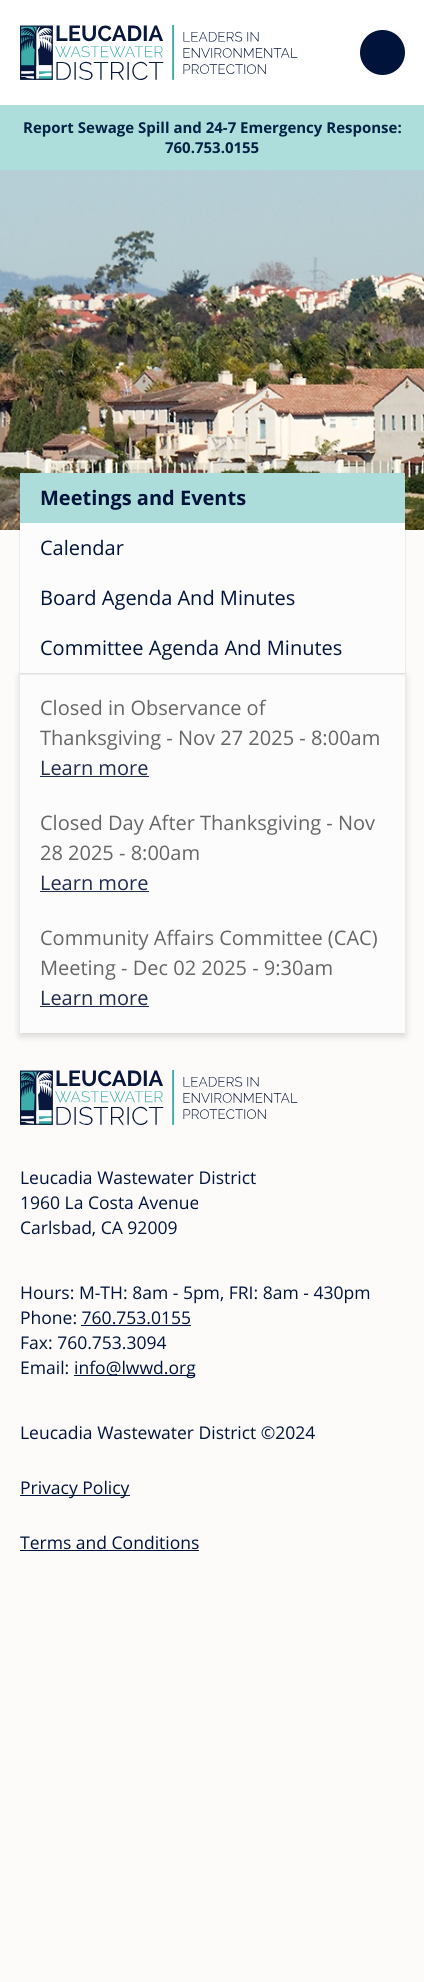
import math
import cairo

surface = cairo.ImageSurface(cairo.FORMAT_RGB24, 424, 1982)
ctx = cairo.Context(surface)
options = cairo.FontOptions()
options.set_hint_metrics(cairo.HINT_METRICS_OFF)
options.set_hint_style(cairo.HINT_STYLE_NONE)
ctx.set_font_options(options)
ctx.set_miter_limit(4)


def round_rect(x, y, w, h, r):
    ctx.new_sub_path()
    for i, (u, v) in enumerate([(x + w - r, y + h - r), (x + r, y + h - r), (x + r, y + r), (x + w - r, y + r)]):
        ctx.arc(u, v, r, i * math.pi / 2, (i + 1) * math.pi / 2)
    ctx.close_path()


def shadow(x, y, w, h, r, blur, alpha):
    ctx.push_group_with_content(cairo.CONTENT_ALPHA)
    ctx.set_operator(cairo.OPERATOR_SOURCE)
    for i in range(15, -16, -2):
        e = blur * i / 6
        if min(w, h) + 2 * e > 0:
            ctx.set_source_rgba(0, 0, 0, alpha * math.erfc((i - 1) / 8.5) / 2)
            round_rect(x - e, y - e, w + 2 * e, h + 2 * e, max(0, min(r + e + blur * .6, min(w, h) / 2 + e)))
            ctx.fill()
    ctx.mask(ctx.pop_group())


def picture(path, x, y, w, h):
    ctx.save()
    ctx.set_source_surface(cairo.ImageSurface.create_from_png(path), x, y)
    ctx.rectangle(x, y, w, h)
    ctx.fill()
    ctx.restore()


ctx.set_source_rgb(0.988, 0.984, 0.976)
ctx.paint()
ctx.set_source_rgb(1, 1, 1)
ctx.rectangle(0, 0, 424, 105)
ctx.fill()
picture("img1.png", 20, 25, 278, 55)
ctx.set_source_rgb(0, 0.078, 0.231)
ctx.arc(382.5, 52.5, 22.5, 0, 2 * math.pi)
ctx.fill()
ctx.set_source_rgb(0.682, 0.871, 0.863)
ctx.rectangle(0, 105, 424, 65)
ctx.fill()
ctx.select_font_face("Open Sans", cairo.FONT_SLANT_NORMAL, cairo.FONT_WEIGHT_BOLD)
ctx.set_font_size(15)
ctx.set_source_rgb(0, 0.133, 0.267)
ctx.move_to(23, 133)
ctx.show_text("Report Sewage Spill and 24-7 Emergency Response:")
ctx.move_to(165, 153)
ctx.show_text("760.753.0155")
picture("img2.png", 0, 170, 424, 360)
ctx.set_source_rgb(0, 0, 0)
shadow(20, 676, 385, 360, 0, 4, 0.16)
ctx.set_source_rgb(0.988, 0.988, 0.988)
ctx.rectangle(20, 673, 385, 360)
ctx.fill()
ctx.set_source_rgb(0, 0, 0)
shadow(20, 474, 385, 200, 0, 1, 0.16)
ctx.set_source_rgb(0.988, 0.988, 0.988)
ctx.rectangle(20, 523, 385, 150)
ctx.fill()
ctx.set_source_rgb(0.678, 0.867, 0.859)
ctx.rectangle(20, 473, 385, 50)
ctx.fill()
ctx.set_font_size(20)
ctx.set_source_rgb(0, 0.078, 0.231)
ctx.move_to(40, 505)
ctx.show_text("Meetings and Events")
ctx.select_font_face("Open Sans")
ctx.move_to(40, 555)
ctx.show_text("Calendar")
ctx.move_to(40, 605)
ctx.show_text("Board Agenda And Minutes")
ctx.move_to(40, 655)
ctx.show_text("Committee Agenda And Minutes")
ctx.set_source_rgb(0.4, 0.4, 0.4)
ctx.move_to(40, 715)
ctx.show_text("Closed in Observance of")
ctx.move_to(40, 745)
ctx.show_text("Thanksgiving - Nov 27 2025 - 8:00am")
ctx.set_source_rgb(0.129, 0.176, 0.31)
ctx.move_to(40, 775)
ctx.show_text("Learn more")
ctx.rectangle(40, 776, 109, 1)
ctx.fill()
ctx.set_source_rgb(0.4, 0.4, 0.4)
ctx.move_to(40, 830)
ctx.show_text("Closed Day After Thanksgiving - Nov")
ctx.move_to(40, 860)
ctx.show_text("28 2025 - 8:00am")
ctx.set_source_rgb(0.129, 0.176, 0.31)
ctx.move_to(40, 890)
ctx.show_text("Learn more")
ctx.rectangle(40, 891, 109, 1)
ctx.fill()
ctx.set_source_rgb(0.4, 0.4, 0.4)
ctx.move_to(40, 945)
ctx.show_text("Community Affairs Committee (CAC)")
ctx.move_to(40, 975)
ctx.show_text("Meeting - Dec 02 2025 - 9:30am")
ctx.set_source_rgb(0.129, 0.176, 0.31)
ctx.move_to(40, 1005)
ctx.show_text("Learn more")
ctx.rectangle(40, 1006, 109, 1)
ctx.fill()
picture("img3.png", 20, 1070, 278, 55)
ctx.set_font_size(17.5)
ctx.set_source_rgb(0, 0.078, 0.231)
ctx.move_to(20, 1184)
ctx.show_text("Leucadia Wastewater District")
ctx.move_to(20, 1209)
ctx.show_text("1960 La Costa Avenue")
ctx.move_to(20, 1234)
ctx.show_text("Carlsbad, CA 92009")
ctx.move_to(20, 1299)
ctx.show_text("Hours: M-TH: 8am - 5pm, FRI: 8am - 430pm")
ctx.move_to(20, 1324)
ctx.show_text("Phone: 760.753.0155")
ctx.rectangle(81, 1325, 110, 1)
ctx.fill()
ctx.move_to(20, 1349)
ctx.show_text("Fax: 760.753.3094")
ctx.move_to(20, 1374)
ctx.show_text("Email:")
ctx.rectangle(74, 1375, 121, 1)
ctx.fill()
ctx.move_to(74, 1374)
ctx.show_text("info@lwwd.org")
ctx.move_to(20, 1439)
ctx.show_text("Leucadia Wastewater District ©2024")
ctx.rectangle(20, 1495, 110, 1)
ctx.fill()
ctx.move_to(20, 1494)
ctx.show_text("Privacy Policy")
ctx.move_to(20, 1549)
ctx.show_text("Terms and Conditions")
ctx.rectangle(20, 1550, 179, 1)
ctx.fill()
surface.write_to_png("page.png")
